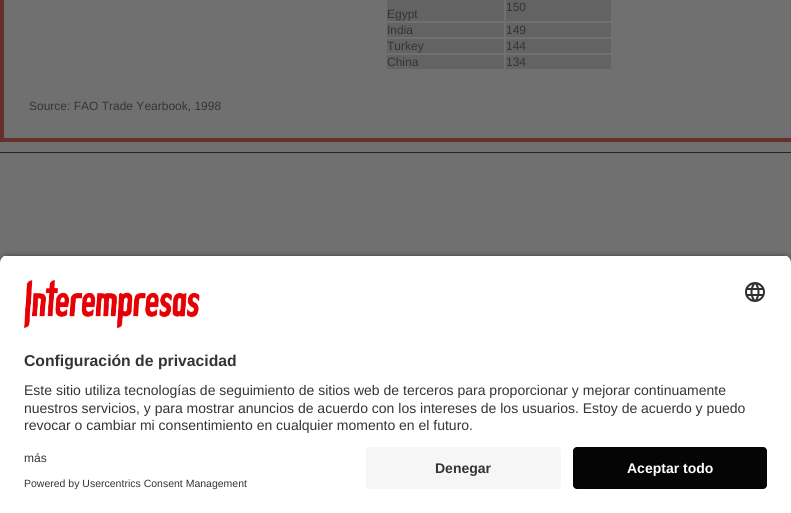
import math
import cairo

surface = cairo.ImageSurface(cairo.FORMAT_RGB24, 791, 513)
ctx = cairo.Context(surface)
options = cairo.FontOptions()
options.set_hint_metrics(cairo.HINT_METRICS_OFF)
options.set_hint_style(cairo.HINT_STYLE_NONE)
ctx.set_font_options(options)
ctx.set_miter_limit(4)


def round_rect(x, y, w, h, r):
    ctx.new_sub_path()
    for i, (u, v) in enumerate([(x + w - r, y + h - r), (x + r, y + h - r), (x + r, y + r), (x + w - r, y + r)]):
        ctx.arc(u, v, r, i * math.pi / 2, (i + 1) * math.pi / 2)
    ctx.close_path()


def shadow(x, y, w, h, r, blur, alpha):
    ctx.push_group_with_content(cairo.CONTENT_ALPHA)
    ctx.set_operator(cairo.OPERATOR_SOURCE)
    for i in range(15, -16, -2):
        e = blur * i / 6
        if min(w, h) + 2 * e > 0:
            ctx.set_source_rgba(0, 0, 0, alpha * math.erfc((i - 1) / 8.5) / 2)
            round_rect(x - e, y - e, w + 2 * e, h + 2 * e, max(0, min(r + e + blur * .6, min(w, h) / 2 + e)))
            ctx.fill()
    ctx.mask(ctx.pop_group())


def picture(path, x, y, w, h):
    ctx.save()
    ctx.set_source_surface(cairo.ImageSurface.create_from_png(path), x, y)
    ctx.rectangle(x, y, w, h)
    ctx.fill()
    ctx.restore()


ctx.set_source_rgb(0.439, 0.439, 0.439)
ctx.paint()
ctx.set_source_rgb(0.396, 0.184, 0.173)
ctx.rectangle(0, 138, 791, 4)
ctx.fill()
ctx.rectangle(0, 0, 4, 142)
ctx.fill()
ctx.set_source_rgb(0.388, 0.388, 0.392)
ctx.rectangle(387, 0, 224, 21)
ctx.fill()
ctx.select_font_face("Liberation Sans")
ctx.set_font_size(12)
ctx.set_source_rgb(0.204, 0.204, 0.204)
ctx.move_to(506, 11)
ctx.show_text("150")
ctx.move_to(387, 18)
ctx.show_text("Egypt")
ctx.set_source_rgb(0.388, 0.388, 0.392)
ctx.rectangle(387, 23, 224, 14)
ctx.fill()
ctx.set_source_rgb(0.204, 0.204, 0.204)
ctx.move_to(387, 34)
ctx.show_text("India")
ctx.move_to(506, 34)
ctx.show_text("149")
ctx.set_source_rgb(0.388, 0.388, 0.392)
ctx.rectangle(387, 39, 224, 14)
ctx.fill()
ctx.set_source_rgb(0.204, 0.204, 0.204)
ctx.move_to(387, 50)
ctx.show_text("Turkey")
ctx.move_to(506, 50)
ctx.show_text("144")
ctx.set_source_rgb(0.388, 0.388, 0.392)
ctx.rectangle(387, 55, 224, 14)
ctx.fill()
ctx.set_source_rgb(0.439, 0.439, 0.439)
ctx.rectangle(504, 0, 2, 71)
ctx.fill()
ctx.set_source_rgb(0.204, 0.204, 0.204)
ctx.move_to(387, 66)
ctx.show_text("China")
ctx.move_to(506, 66)
ctx.show_text("134")
ctx.move_to(29, 110)
ctx.show_text("Source: FAO Trade Yearbook, 1998")
ctx.set_source_rgb(0.141, 0.141, 0.141)
ctx.rectangle(0, 152, 791, 1)
ctx.fill()
ctx.set_source_rgb(0, 0, 0)
shadow(0, 258, 791, 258, 8, 3.5, 0.8)
ctx.save()
ctx.new_path()
ctx.move_to(8, 255)
ctx.line_to(783, 255)
ctx.curve_to(787.5, 255, 791, 258.5, 791, 263)
ctx.line_to(791, 439)
ctx.line_to(0, 439)
ctx.line_to(0, 263)
ctx.curve_to(0, 258.5, 3.5, 255, 8, 255)
ctx.close_path()
ctx.clip()
ctx.set_source_rgb(1, 1, 1)
ctx.rectangle(0, 256, 791, 183)
ctx.fill()
ctx.restore()
picture("img1.png", 24, 280, 176, 49)
picture("img2.png", 745, 282, 20, 20)
ctx.select_font_face("Liberation Sans", cairo.FONT_SLANT_NORMAL, cairo.FONT_WEIGHT_BOLD)
ctx.set_font_size(15.75)
ctx.set_source_rgb(0.204, 0.204, 0.204)
ctx.move_to(24, 366)
ctx.show_text("Configuración de privacidad")
ctx.select_font_face("Liberation Sans")
ctx.set_font_size(14)
ctx.move_to(24, 395)
ctx.show_text("Este sitio utiliza tecnologías de seguimiento de sitios web de terceros para proporcionar y mejorar continuamente")
ctx.move_to(24, 413)
ctx.show_text("nuestros servicios, y para mostrar anuncios de acuerdo con los intereses de los usuarios. Estoy de acuerdo y puedo")
ctx.move_to(24, 430)
ctx.show_text("revocar o cambiar mi consentimiento en cualquier momento en el futuro.")
ctx.set_source_rgb(1, 1, 1)
ctx.rectangle(0, 439, 791, 74)
ctx.fill()
ctx.set_font_size(12)
ctx.set_source_rgb(0.204, 0.204, 0.204)
ctx.move_to(24, 462)
ctx.show_text("más")
ctx.set_font_size(10.5)
ctx.move_to(24, 487)
ctx.show_text("Powered by Usercentrics Consent Management")
ctx.set_source_rgb(0.961, 0.961, 0.961)
round_rect(366, 447, 195, 42, 4)
ctx.fill()
ctx.select_font_face("Liberation Sans", cairo.FONT_SLANT_NORMAL, cairo.FONT_WEIGHT_BOLD)
ctx.set_font_size(14)
ctx.set_source_rgb(0.204, 0.204, 0.204)
ctx.move_to(435, 473)
ctx.show_text("Denegar")
ctx.set_source_rgb(0.02, 0.02, 0.02)
round_rect(573, 447, 194, 42, 4)
ctx.fill()
ctx.set_source_rgb(1, 1, 1)
ctx.move_to(627, 473)
ctx.show_text("Aceptar todo")
surface.write_to_png("page.png")
